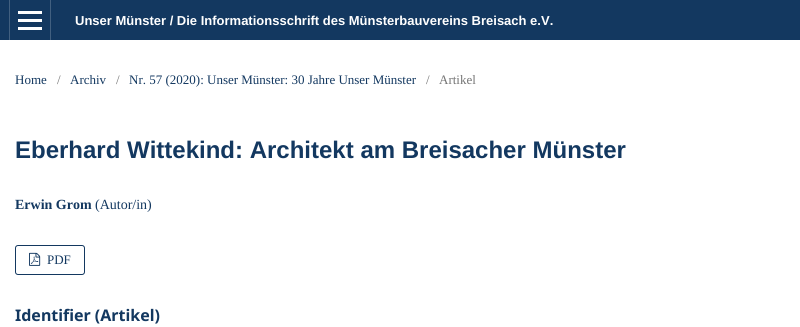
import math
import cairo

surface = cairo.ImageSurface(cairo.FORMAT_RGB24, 800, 327)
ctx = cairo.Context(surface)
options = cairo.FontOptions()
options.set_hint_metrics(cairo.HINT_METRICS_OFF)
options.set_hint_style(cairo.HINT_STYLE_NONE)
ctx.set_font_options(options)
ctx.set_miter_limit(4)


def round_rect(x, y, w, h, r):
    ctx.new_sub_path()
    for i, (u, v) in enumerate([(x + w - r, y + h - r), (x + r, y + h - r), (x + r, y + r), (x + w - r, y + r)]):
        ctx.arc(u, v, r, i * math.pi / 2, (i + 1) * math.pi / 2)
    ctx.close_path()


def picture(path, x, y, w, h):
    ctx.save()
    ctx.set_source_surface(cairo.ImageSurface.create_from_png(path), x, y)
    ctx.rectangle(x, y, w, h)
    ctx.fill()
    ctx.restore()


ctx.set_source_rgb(1, 1, 1)
ctx.paint()
ctx.set_source_rgb(0.075, 0.22, 0.376)
ctx.rectangle(0, 0, 800, 40)
ctx.fill()
ctx.set_source_rgb(0.259, 0.376, 0.502)
ctx.rectangle(9, 0, 1, 40)
ctx.fill()
ctx.rectangle(50, 0, 1, 40)
ctx.fill()
ctx.set_source_rgb(1, 1, 1)
ctx.rectangle(18, 27, 24, 3)
ctx.fill()
ctx.rectangle(18, 11, 24, 3)
ctx.fill()
ctx.rectangle(18, 19, 24, 3)
ctx.fill()
ctx.select_font_face("Liberation Sans", cairo.FONT_SLANT_NORMAL, cairo.FONT_WEIGHT_BOLD)
ctx.set_font_size(13)
ctx.move_to(75, 25)
ctx.show_text("Unser Münster / Die Informationsschrift des Münsterbauvereins Breisach e.V.")
ctx.select_font_face("Liberation Serif")
ctx.set_source_rgb(0.075, 0.22, 0.376)
ctx.move_to(15, 84)
ctx.show_text("Home")
ctx.set_source_rgb(0.459, 0.459, 0.459)
ctx.move_to(57, 84)
ctx.show_text("/")
ctx.set_source_rgb(0.075, 0.22, 0.376)
ctx.move_to(70, 84)
ctx.show_text("Archiv")
ctx.set_source_rgb(0.459, 0.459, 0.459)
ctx.move_to(116, 84)
ctx.show_text("/")
ctx.set_source_rgb(0.075, 0.22, 0.376)
ctx.move_to(129, 84)
ctx.show_text("Nr. 57 (2020): Unser Münster: 30 Jahre Unser Münster")
ctx.set_source_rgb(0.459, 0.459, 0.459)
ctx.move_to(426, 84)
ctx.show_text("/")
ctx.move_to(439, 84)
ctx.show_text("Artikel")
ctx.select_font_face("Liberation Sans", cairo.FONT_SLANT_NORMAL, cairo.FONT_WEIGHT_BOLD)
ctx.set_font_size(24)
ctx.set_source_rgb(0.075, 0.22, 0.376)
ctx.move_to(15, 158)
ctx.show_text("Eberhard Wittekind: Architekt am Breisacher Münster")
ctx.select_font_face("Liberation Serif", cairo.FONT_SLANT_NORMAL, cairo.FONT_WEIGHT_BOLD)
ctx.set_font_size(14)
ctx.move_to(15, 209)
ctx.show_text("Erwin Grom")
ctx.select_font_face("Liberation Serif")
ctx.move_to(95, 209)
ctx.show_text("(Autor/in)")
round_rect(15.5, 245.5, 69, 29, 2.5)
ctx.set_line_width(1)
ctx.stroke()
picture("img1.png", 29, 252, 12, 14)
ctx.set_font_size(13)
ctx.move_to(47, 264)
ctx.show_text("PDF")
ctx.select_font_face("Noto Sans", cairo.FONT_SLANT_NORMAL, cairo.FONT_WEIGHT_BOLD)
ctx.set_font_size(16)
ctx.move_to(15, 321)
ctx.show_text("Identifier (Artikel)")
surface.write_to_png("page.png")
